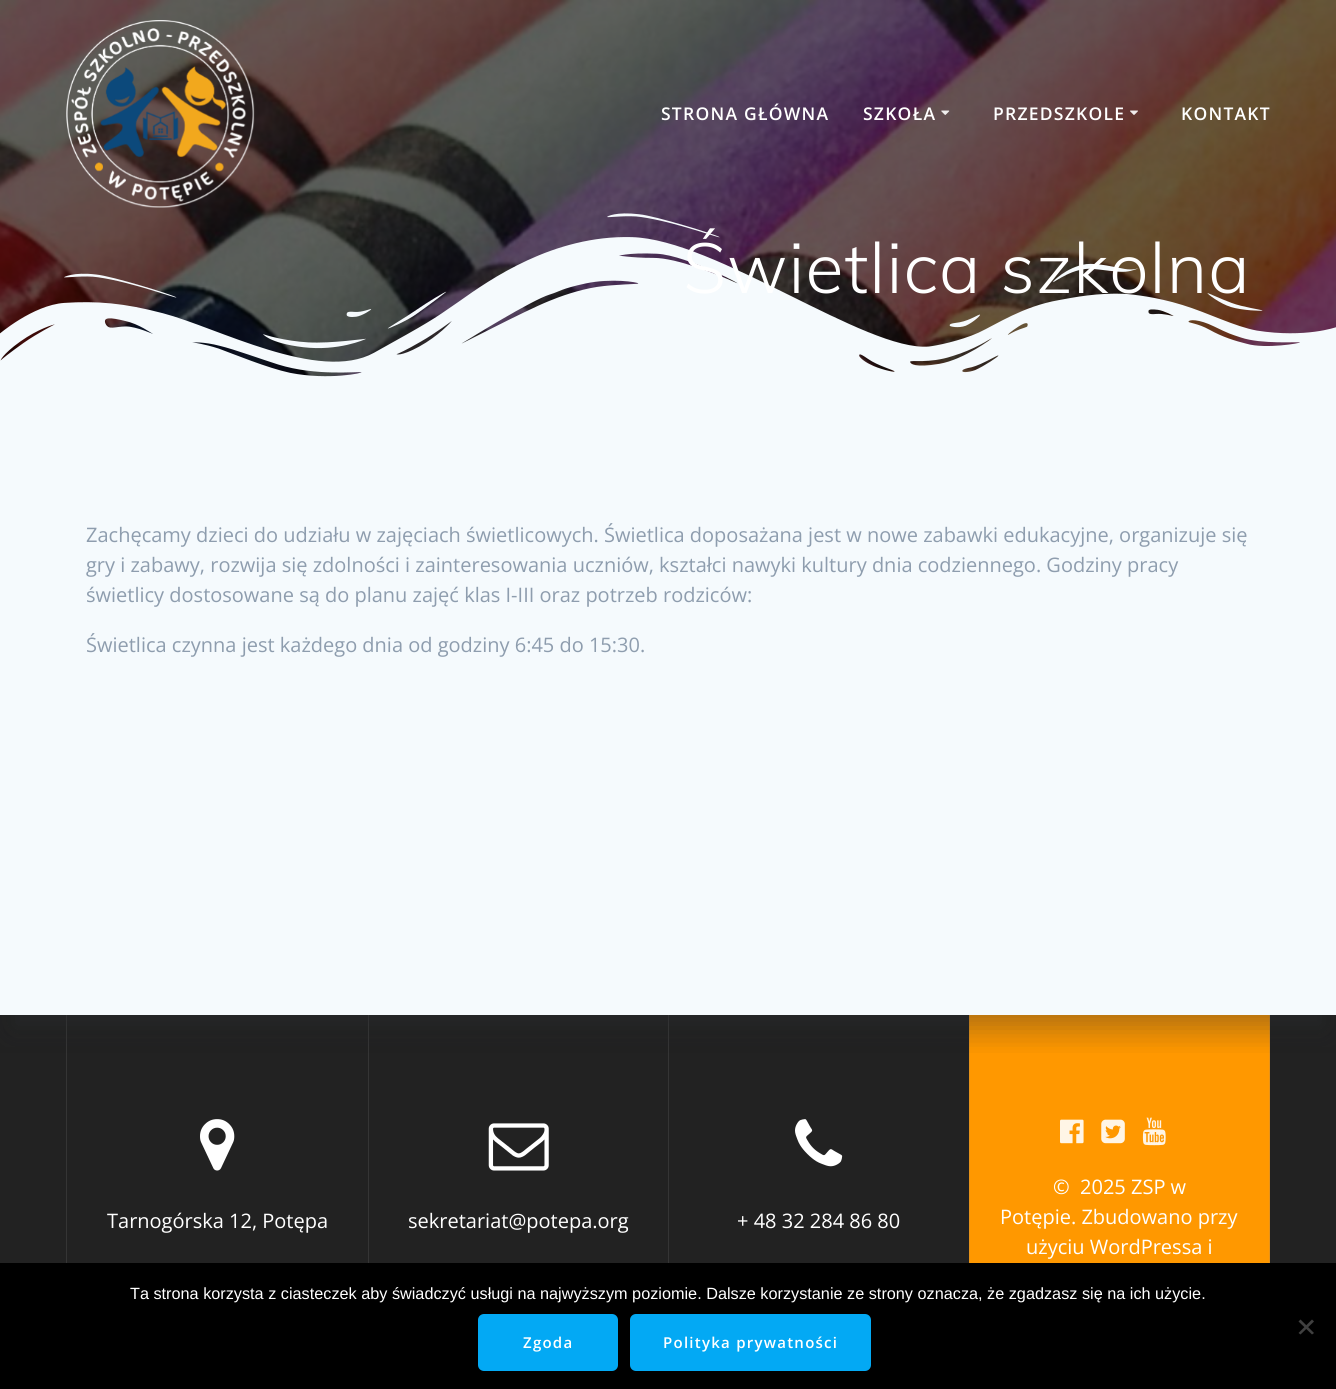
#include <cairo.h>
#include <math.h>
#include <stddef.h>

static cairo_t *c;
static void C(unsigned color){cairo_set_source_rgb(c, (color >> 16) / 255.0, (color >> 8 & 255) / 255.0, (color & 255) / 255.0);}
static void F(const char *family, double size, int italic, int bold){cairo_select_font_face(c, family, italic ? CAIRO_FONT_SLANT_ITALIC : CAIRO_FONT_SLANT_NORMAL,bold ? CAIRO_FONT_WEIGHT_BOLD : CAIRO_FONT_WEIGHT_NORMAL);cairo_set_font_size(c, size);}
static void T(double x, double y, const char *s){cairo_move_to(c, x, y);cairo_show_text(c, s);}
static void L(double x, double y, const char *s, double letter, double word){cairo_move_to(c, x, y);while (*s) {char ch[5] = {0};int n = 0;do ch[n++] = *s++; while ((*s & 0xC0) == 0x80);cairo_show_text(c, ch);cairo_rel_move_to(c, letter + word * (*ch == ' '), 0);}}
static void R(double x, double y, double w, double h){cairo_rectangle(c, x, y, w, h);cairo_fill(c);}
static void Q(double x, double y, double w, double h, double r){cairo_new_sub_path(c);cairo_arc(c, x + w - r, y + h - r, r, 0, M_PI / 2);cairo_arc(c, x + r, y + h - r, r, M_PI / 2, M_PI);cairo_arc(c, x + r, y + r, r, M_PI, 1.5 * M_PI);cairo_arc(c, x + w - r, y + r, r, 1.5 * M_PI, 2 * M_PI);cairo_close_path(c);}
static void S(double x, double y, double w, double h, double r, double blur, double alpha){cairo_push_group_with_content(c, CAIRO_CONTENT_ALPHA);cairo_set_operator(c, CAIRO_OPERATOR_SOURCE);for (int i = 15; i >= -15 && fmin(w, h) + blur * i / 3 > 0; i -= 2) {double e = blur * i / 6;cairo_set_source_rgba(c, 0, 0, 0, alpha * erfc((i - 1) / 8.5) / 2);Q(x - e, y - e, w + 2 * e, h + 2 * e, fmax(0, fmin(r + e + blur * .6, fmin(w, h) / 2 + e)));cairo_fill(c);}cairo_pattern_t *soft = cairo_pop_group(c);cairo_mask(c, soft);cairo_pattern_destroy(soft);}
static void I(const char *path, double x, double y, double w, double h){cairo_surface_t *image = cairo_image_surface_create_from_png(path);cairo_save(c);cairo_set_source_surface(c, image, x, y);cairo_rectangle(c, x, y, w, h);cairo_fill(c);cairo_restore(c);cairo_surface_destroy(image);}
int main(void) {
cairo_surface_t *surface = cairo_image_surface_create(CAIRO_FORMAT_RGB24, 1336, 1389);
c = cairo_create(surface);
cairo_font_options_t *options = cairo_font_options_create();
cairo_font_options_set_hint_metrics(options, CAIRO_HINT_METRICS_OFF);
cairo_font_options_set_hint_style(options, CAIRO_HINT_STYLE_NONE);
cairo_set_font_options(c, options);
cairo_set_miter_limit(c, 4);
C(0xf5fafd);
cairo_paint(c);
I("4.png",0,0,1336,377);
I("1.png",66,20,189,188);
F("Open Sans SemiBold",17.5,0,0);
C(0xffffff);
L(661,120,"STRONA GŁÓWNA",1.25,0);
L(863,120,"SZKOŁA",1.25,0);
I("2.png",941,110,9,5);
L(993,120,"PRZEDSZKOLE",1.25,0);
I("3.png",1130,110,8,5);
L(1181,120,"KONTAKT",1.25,0);
I("5.png",0,213,1336,186);
F("Muli Light",70,0,0);
L(683,293,"Świetlica szkolna",1.1,0);
C(0x222222);
R(0,1015,1336,248);
C(0x353535);
R(66,1015,1,248);
R(368,1015,1,248);
R(668,1015,1,248);
C(0xff9800);
R(970,1015,299,248);
C(0xe6931a);
R(1269,1015,1,248);
R(969,1015,1,248);
cairo_save(c);
cairo_rectangle(c,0,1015,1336,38);
cairo_clip(c);
C(0x000000);
S(0,424,1336,616,0,19,.08);
cairo_restore(c);
cairo_save(c);
cairo_rectangle(c,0,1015,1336,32);
cairo_clip(c);
C(0x313439);
S(13,436,1311,592,0,12.5,.3);
cairo_restore(c);
F("Open Sans",20,0,0);
C(0x8e9dae);
T(86,542,"Zachęcamy dzieci do udziału w zajęciach świetlicowych. Świetlica doposażana jest w nowe zabawki edukacyjne, organizuje się");
T(86,572,"gry i zabawy, rozwija się zdolności i zainteresowania uczniów, kształci nawyki kultury dnia codziennego. Godziny pracy");
T(86,602,"świetlicy dostosowane są do planu zajęć klas I-III oraz potrzeb rodziców:");
T(86,652,"Świetlica czynna jest każdego dnia od godziny 6:45 do 15:30.");
I("6.png",200,1119,35,52);
C(0xffffff);
T(107,1228,"Tarnogórska 12, Potępa");
I("7.png",488,1123,61,48);
T(408,1228,"sekretariat@potepa.org");
I("8.png",795,1119,48,48);
T(737,1228,"+ 48 32 284 86 80");
I("9.png",1060,1119,24,25);
I("10.png",1101,1119,24,25);
I("11.png",1142,1117,24,29);
T(1053,1194,"©  2025 ZSP w");
T(1000,1224,"Potępie. Zbudowano przy");
T(1026,1254,"użyciu WordPressa i");
C(0x000000);
R(0,1263,1336,126);
F("Liberation Sans",16.25,0,0);
C(0xffffff);
T(130,1299,"Ta strona korzysta z ciasteczek aby świadczyć usługi na najwyższym poziomie. Dalsze korzystanie ze strony oznacza, że zgadzasz się na ich użycie.");
C(0x404040);
cairo_new_path(c);
cairo_move_to(c,1312,1319.5);
cairo_line_to(c,1314,1321.5);
cairo_line_to(c,1300.5,1334.5);
cairo_line_to(c,1298.5,1333);
cairo_close_path(c);
cairo_fill(c);
cairo_new_path(c);
cairo_move_to(c,1298.5,1321.5);
cairo_line_to(c,1300.5,1319.5);
cairo_line_to(c,1314,1333);
cairo_line_to(c,1312,1334.5);
cairo_close_path(c);
cairo_fill(c);
C(0x03a9f4);
Q(479.5,1315.5,137,54,4.5);
cairo_fill_preserve(c);
cairo_set_line_width(c,3);
cairo_stroke(c);
F("Open Sans SemiBold",15,0,0);
C(0xffffff);
L(523,1348,"Zgoda",1.25,0);
C(0x03a9f4);
Q(631.5,1315.5,238,54,4.5);
cairo_fill_preserve(c);
cairo_stroke(c);
C(0xffffff);
L(663,1348,"Polityka prywatności",1.25,0);
cairo_surface_write_to_png(surface, "o.png");
cairo_font_options_destroy(options);
cairo_destroy(c);
cairo_surface_destroy(surface);
return 0;
}
